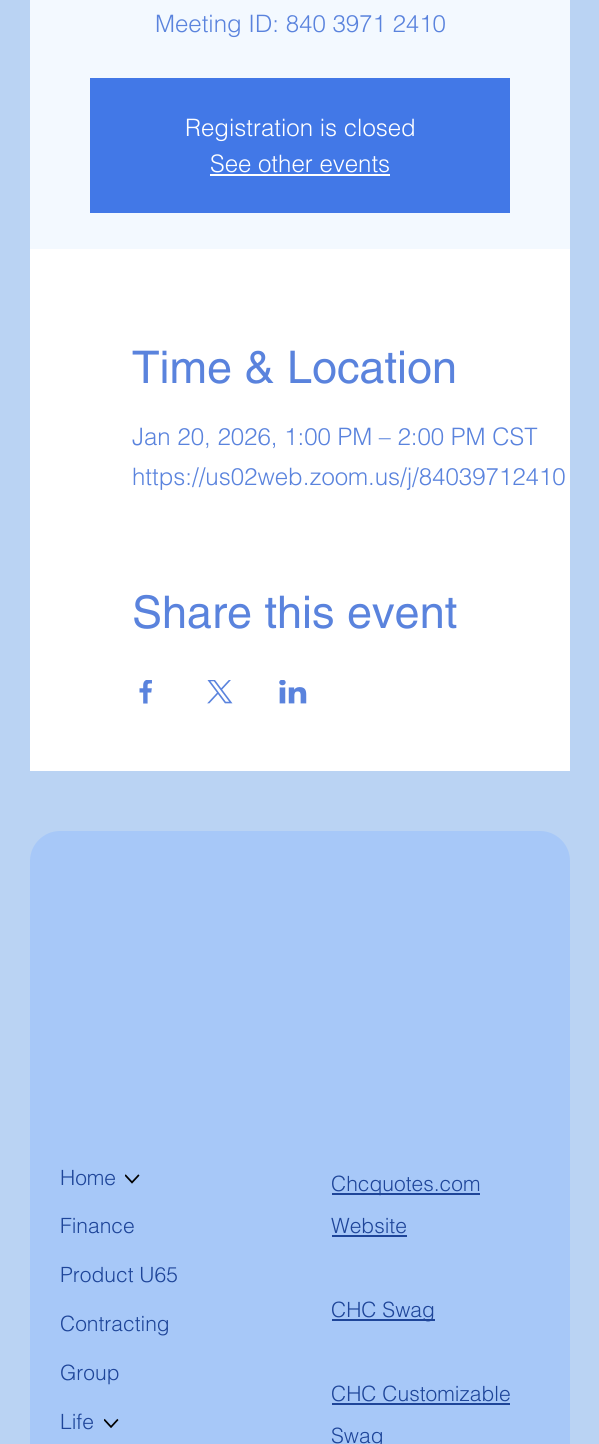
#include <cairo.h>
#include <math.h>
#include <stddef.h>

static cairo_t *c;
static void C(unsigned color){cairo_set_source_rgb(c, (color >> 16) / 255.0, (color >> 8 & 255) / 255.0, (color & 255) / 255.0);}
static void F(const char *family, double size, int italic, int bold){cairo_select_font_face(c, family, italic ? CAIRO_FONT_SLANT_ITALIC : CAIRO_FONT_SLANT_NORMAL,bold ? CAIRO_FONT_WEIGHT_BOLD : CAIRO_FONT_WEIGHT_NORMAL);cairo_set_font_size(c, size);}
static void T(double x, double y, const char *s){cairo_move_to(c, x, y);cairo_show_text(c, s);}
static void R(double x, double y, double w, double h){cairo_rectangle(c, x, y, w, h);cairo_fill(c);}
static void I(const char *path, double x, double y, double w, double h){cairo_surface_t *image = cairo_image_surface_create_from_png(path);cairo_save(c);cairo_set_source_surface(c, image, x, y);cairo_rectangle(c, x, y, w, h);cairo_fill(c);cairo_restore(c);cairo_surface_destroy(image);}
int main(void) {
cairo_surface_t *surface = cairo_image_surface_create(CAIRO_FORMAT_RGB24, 599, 1444);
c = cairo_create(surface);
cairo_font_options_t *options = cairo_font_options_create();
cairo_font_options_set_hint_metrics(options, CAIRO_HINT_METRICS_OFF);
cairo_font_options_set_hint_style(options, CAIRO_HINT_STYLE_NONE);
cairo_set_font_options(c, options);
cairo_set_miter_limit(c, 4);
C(0xbad3f3);
cairo_paint(c);
C(0xf3f9ff);
R(30,0,540,249);
F("helvetica Light",24,0,0);
C(0x5a83dd);
T(155,32,"Meeting ID: 840 3971 2410");
C(0x4278e7);
R(90,78,420,135);
C(0xffffff);
T(185,136,"Registration is closed");
T(210,172,"See other events");
R(210,174,180,2);
R(30,249,540,522);
F("helvetica",45,0,0);
C(0x5a83dd);
T(132,383,"Time & Location");
F("helvetica Light",24,0,0);
T(132,445,"Jan 20, 2026, 1:00 PM – 2:00 PM CST");
T(132,485,"https://us02web.zoom.us/j/84039712410");
F("helvetica",45,0,0);
T(132,628,"Share this event");
I("1.png",139,680,13,24);
I("2.png",207,680,26,24);
I("3.png",279,680,28,24);
C(0xa7c8f8);
cairo_new_path(c);
cairo_move_to(c,60,831);
cairo_line_to(c,540,831);
cairo_curve_to(c,556.5,831,570,844.5,570,861);
cairo_line_to(c,570,1133);
cairo_line_to(c,30,1133);
cairo_line_to(c,30,861);
cairo_curve_to(c,30,844.5,43.5,831,60,831);
cairo_close_path(c);
cairo_fill(c);
R(30,1133,540,311);
F("helvetica Light",21,0,0);
C(0x1e4599);
T(60,1185,"Home");
I("4.png",125,1174,15,10);
T(60,1233,"Finance");
T(60,1282,"Product U65");
T(60,1331,"Contracting");
T(60,1380,"Group");
T(60,1429,"Life");
I("5.png",104,1418,15,10);
R(332,1193,148,2);
T(331,1191,"Chcquotes.com");
T(331,1233,"Website");
R(332,1235,75,2);
R(332,1319,103,2);
T(331,1317,"CHC Swag");
T(331,1401,"CHC Customizable");
R(332,1403,178,2);
T(331,1443,"Swag");
cairo_surface_write_to_png(surface, "o.png");
cairo_font_options_destroy(options);
cairo_destroy(c);
cairo_surface_destroy(surface);
return 0;
}
